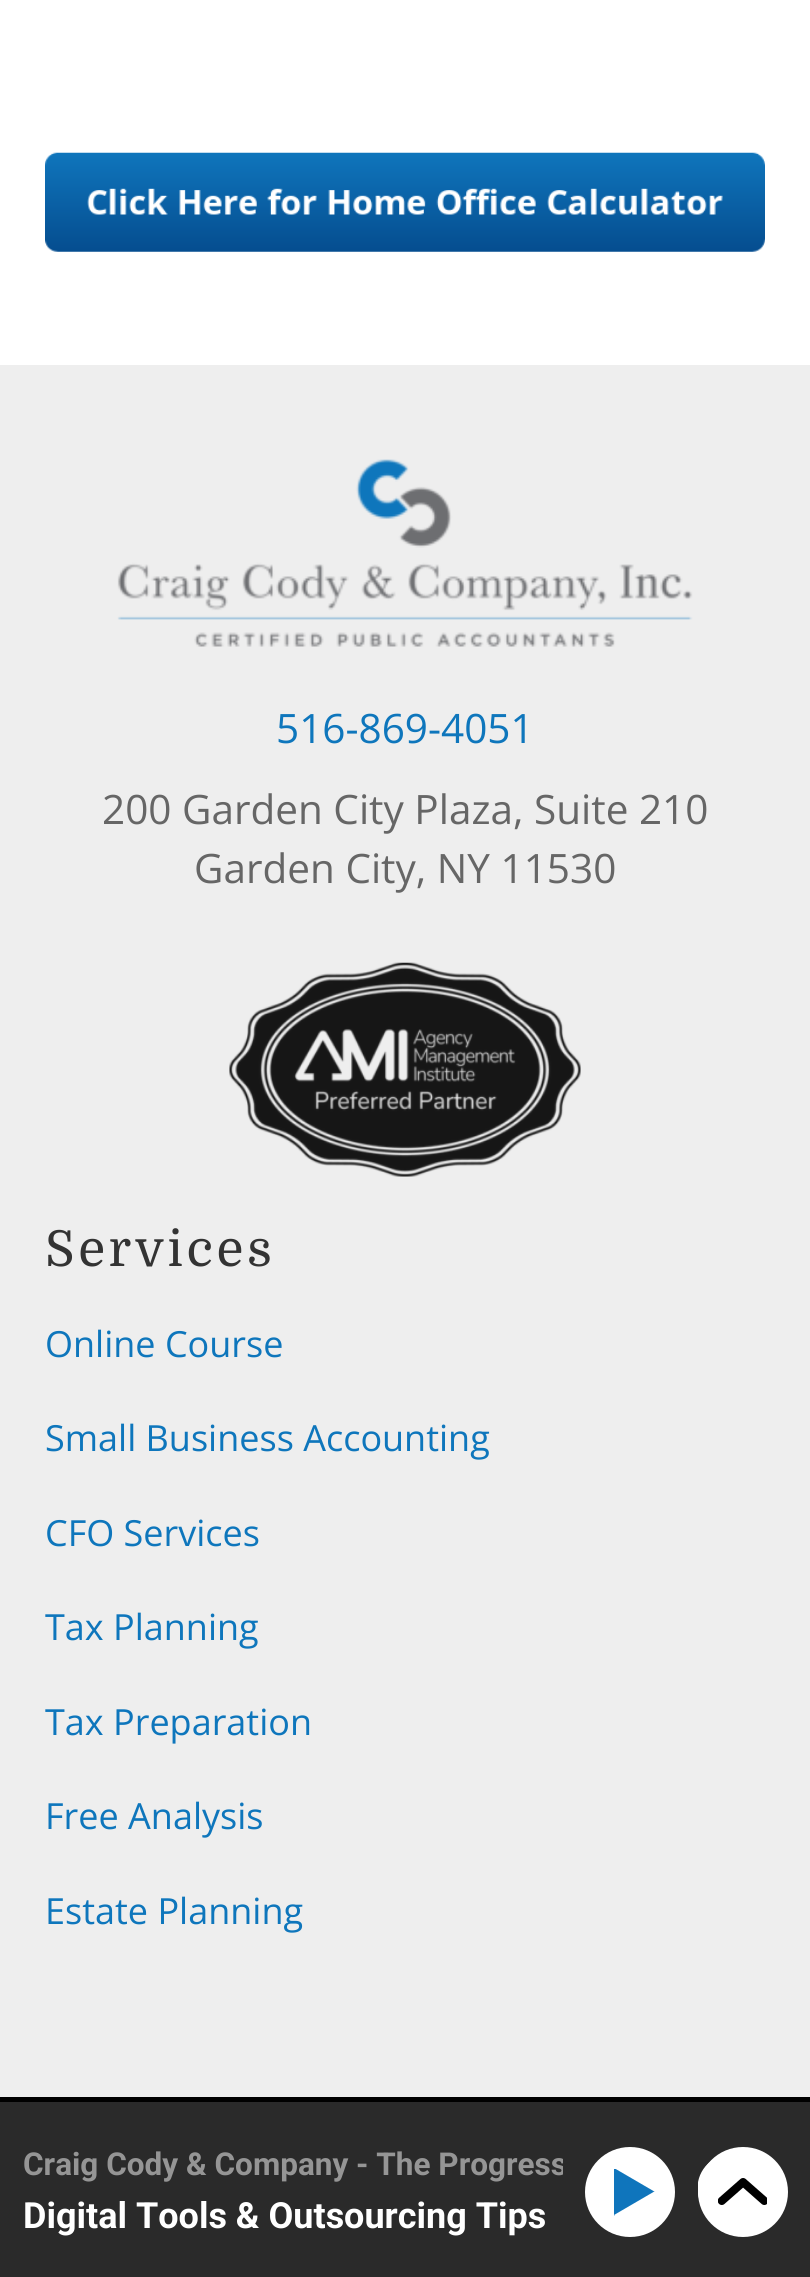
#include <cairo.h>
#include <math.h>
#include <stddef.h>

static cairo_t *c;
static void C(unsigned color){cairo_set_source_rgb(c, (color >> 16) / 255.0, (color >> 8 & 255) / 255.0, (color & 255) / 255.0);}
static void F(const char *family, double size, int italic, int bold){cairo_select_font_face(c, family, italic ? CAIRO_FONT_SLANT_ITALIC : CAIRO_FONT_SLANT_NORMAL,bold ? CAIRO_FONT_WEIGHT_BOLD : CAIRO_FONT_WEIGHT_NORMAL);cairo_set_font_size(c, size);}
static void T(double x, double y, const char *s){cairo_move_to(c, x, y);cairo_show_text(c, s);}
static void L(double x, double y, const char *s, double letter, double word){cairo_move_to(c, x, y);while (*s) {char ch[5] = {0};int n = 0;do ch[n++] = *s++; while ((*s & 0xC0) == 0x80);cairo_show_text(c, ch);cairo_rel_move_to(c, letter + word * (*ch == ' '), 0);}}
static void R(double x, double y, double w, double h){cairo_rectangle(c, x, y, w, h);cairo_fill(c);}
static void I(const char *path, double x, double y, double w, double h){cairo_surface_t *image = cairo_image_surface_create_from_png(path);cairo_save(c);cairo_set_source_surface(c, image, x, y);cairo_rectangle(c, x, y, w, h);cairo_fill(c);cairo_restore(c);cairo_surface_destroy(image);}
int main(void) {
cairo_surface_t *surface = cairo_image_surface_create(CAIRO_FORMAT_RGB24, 810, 2277);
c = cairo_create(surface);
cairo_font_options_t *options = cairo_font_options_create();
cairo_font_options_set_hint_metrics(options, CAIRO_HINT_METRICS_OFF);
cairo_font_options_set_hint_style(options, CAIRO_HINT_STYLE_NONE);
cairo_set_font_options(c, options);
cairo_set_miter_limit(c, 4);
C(0xffffff);
cairo_paint(c);
I("1.png",45,152,720,100);
C(0xeeeeee);
R(0,365,810,1732);
I("2.png",117,459,576,188);
F("Open Sans",40.5,0,0);
C(0x0e76bc);
T(276,743,"516-869-4051");
C(0x666666);
T(102,824,"200 Garden City Plaza, Suite 210");
T(194,883,"Garden City, NY 11530");
I("3.png",229,962,352,215);
F("Domine",49.5,0,0);
C(0x333333);
L(45,1266,"Services",3.5,0);
F("Open Sans",36,0,0);
C(0x0e76bc);
T(45,1357,"Online Course");
T(45,1451,"Small Business Accounting");
T(45,1546,"CFO Services");
T(45,1640,"Tax Planning");
T(45,1735,"Tax Preparation");
T(45,1829,"Free Analysis");
T(45,1924,"Estate Planning");
C(0x2a2a2a);
R(0,2102,810,175);
C(0x000000);
R(0,2097,810,5);
cairo_save(c);
cairo_rectangle(c,23,2147,540,38);
cairo_clip(c);
F("Roboto",31.5,0,1);
C(0x959595);
T(23,2175,"Craig Cody & Company - The Progress");
cairo_restore(c);
F("Roboto",36,0,1);
C(0xffffff);
T(23,2228,"Digital Tools & Outsourcing Tips");
I("4.png",698,2159,15,39);
cairo_arc(c,630,2192,45,0,2 * M_PI);
cairo_fill(c);
C(0x0f75bc);
R(614,2169,16,47);
R(630,2177,26,29);
cairo_save(c);
cairo_rectangle(c,601,2162,58,59);
cairo_clip(c);
C(0xffffff);
cairo_new_path(c);
cairo_move_to(c,637,2128);
cairo_line_to(c,698,2163);
cairo_line_to(c,674,2203);
cairo_line_to(c,614,2168);
cairo_close_path(c);
cairo_fill(c);
cairo_new_path(c);
cairo_move_to(c,614,2215);
cairo_line_to(c,674,2180);
cairo_line_to(c,698,2220);
cairo_line_to(c,637,2255);
cairo_close_path(c);
cairo_fill(c);
cairo_restore(c);
C(0xffffff);
cairo_arc(c,743,2192,45,0,2 * M_PI);
cairo_fill(c);
I("5.png",718,2178,49,27);
cairo_surface_write_to_png(surface, "o.png");
cairo_font_options_destroy(options);
cairo_destroy(c);
cairo_surface_destroy(surface);
return 0;
}
